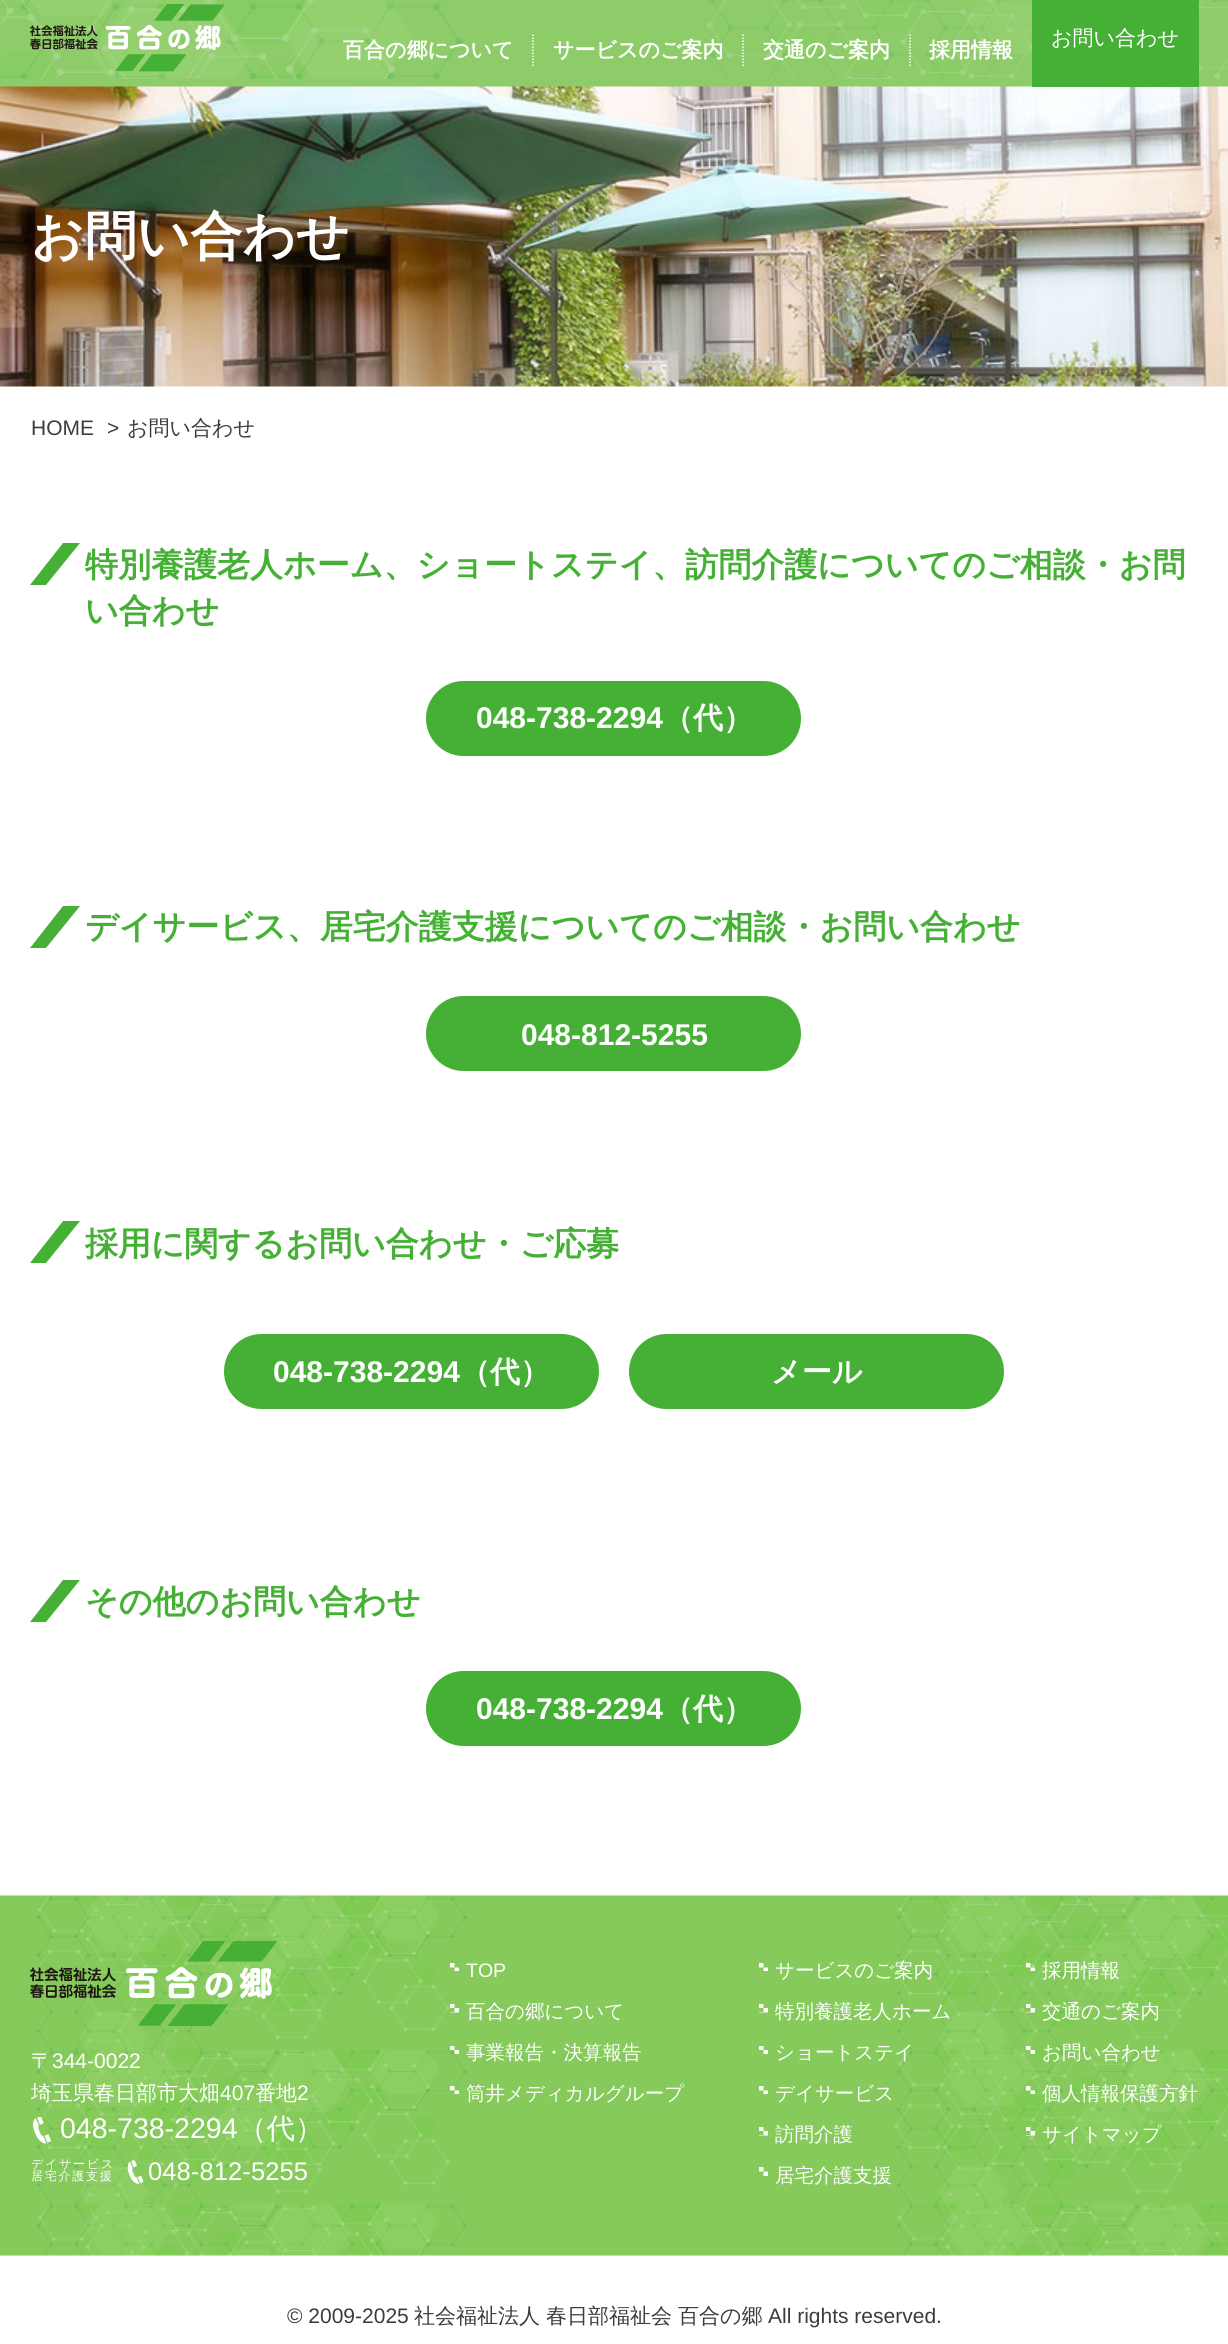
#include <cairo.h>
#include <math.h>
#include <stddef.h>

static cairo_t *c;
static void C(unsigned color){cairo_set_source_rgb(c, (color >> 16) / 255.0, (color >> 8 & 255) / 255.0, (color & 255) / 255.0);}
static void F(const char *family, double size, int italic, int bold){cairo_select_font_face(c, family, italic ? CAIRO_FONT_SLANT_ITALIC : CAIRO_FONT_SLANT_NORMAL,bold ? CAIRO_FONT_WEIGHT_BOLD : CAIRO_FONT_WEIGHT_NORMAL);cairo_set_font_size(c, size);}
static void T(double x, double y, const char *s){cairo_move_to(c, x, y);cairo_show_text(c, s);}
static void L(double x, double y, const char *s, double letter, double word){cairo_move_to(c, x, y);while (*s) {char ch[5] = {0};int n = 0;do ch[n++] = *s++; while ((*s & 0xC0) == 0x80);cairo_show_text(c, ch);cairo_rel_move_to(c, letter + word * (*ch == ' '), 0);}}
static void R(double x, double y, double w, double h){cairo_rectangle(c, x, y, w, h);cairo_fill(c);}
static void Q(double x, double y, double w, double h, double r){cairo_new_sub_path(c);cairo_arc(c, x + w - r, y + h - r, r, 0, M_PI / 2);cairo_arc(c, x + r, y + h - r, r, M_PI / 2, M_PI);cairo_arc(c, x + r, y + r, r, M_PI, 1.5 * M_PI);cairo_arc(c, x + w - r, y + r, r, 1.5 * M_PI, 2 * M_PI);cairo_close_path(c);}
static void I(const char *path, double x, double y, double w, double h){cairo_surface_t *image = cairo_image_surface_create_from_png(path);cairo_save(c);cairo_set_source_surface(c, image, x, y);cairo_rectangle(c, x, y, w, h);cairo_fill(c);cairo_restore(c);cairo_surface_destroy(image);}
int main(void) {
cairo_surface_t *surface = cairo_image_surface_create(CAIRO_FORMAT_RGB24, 1228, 2344);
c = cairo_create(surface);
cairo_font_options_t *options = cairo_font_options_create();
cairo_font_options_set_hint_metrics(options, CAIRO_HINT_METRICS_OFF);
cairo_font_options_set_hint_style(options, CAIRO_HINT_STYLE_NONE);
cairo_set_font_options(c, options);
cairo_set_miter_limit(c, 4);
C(0xffffff);
cairo_paint(c);
C(0x8ecc6a);
R(0,0,1228,87);
I("1.png",1,0,1227,79);
I("2.png",30,4,195,68);
cairo_new_path(c);
cairo_move_to(c,533,34.5);
cairo_line_to(c,533,66);
C(0xffffff);
cairo_set_line_width(c,1.5);
cairo_set_dash(c,(double[]){1.5,1.5},2,0);
cairo_stroke(c);
F("WenQuanYi Zen Hei",21,0,1);
T(343,57,"百合の郷について");
cairo_new_path(c);
cairo_move_to(c,743,34.5);
cairo_line_to(c,743,66);
cairo_stroke(c);
T(553,57,"サービスのご案内");
cairo_new_path(c);
cairo_move_to(c,910,34.5);
cairo_line_to(c,910,66);
cairo_stroke(c);
T(763,57,"交通のご案内");
T(929,57,"採用情報");
I("3.png",0,86,1228,301);
C(0x45b035);
R(1032,0,167,87);
F("WenQuanYi Zen Hei Medium",21,0,0);
C(0xffffff);
T(1051,45,"お問い合わせ");
F("WenQuanYi Zen Hei",52.25,0,1);
T(31,254,"お問い合わせ");
F("Liberation Sans",21,0,0);
C(0x3c3c3c);
T(31,435,"HOME");
T(107,435,">");
F("WenQuanYi Zen Hei Medium",21,0,0);
T(127,435,"お問い合わせ");
C(0x45b035);
cairo_new_path(c);
cairo_move_to(c,80,543);
cairo_line_to(c,63,543);
cairo_line_to(c,30,585);
cairo_line_to(c,46,585);
cairo_close_path(c);
cairo_fill(c);
F("WenQuanYi Zen Hei",33,0,1);
T(85,576,"特別養護老人ホーム、ショートステイ、訪問介護についてのご相談・お問");
T(85,622,"い合わせ");
Q(426,681,375,75,37.5);
cairo_fill(c);
F("Liberation Sans",30,0,1);
C(0xffffff);
T(476,728,"048-738-2294");
F("WenQuanYi Zen Hei",30,0,1);
T(663,728,"（代）");
C(0x45b035);
cairo_new_path(c);
cairo_move_to(c,80,906);
cairo_line_to(c,63,906);
cairo_line_to(c,30,948);
cairo_line_to(c,46,948);
cairo_close_path(c);
cairo_fill(c);
F("WenQuanYi Zen Hei",33,0,1);
T(85,938,"デイサービス、居宅介護支援についてのご相談・お問い合わせ");
Q(426,996,375,75,37.5);
cairo_fill(c);
F("Liberation Sans",30,0,1);
C(0xffffff);
T(521,1045,"048-812-5255");
C(0x45b035);
cairo_new_path(c);
cairo_move_to(c,80,1221);
cairo_line_to(c,63,1221);
cairo_line_to(c,30,1263);
cairo_line_to(c,46,1263);
cairo_close_path(c);
cairo_fill(c);
F("WenQuanYi Zen Hei",33,0,1);
T(85,1255,"採用に関するお問い合わせ・ご応募");
Q(224,1334,375,75,37.5);
cairo_fill(c);
F("Liberation Sans",30,0,1);
C(0xffffff);
T(273,1382,"048-738-2294");
F("WenQuanYi Zen Hei",30,0,1);
T(460,1382,"（代）");
C(0x45b035);
Q(629,1334,375,75,37.5);
cairo_fill(c);
C(0xffffff);
T(771,1382,"メール");
C(0x45b035);
cairo_new_path(c);
cairo_move_to(c,80,1580);
cairo_line_to(c,63,1580);
cairo_line_to(c,30,1622);
cairo_line_to(c,46,1622);
cairo_close_path(c);
cairo_fill(c);
F("WenQuanYi Zen Hei",33,0,1);
T(85,1613,"その他のお問い合わせ");
Q(426,1671,375,75,37.5);
cairo_fill(c);
F("Liberation Sans",30,0,1);
C(0xffffff);
T(476,1719,"048-738-2294");
F("WenQuanYi Zen Hei",30,0,1);
T(663,1719,"（代）");
I("4.png",0,1895,1228,361);
I("5.png",30,1941,248,85);
F("WenQuanYi Zen Hei Medium",21,0,0);
T(31,2068,"〒");
F("Liberation Sans",21,0,0);
T(52,2068,"344-0022");
F("WenQuanYi Zen Hei Medium",21,0,0);
T(31,2100,"埼玉県春日部市大畑");
F("Liberation Sans",21,0,0);
T(220,2100,"407");
F("WenQuanYi Zen Hei Medium",21,0,0);
T(255,2100,"番地");
F("Liberation Sans",21,0,0);
T(297,2100,"2");
I("6.png",33,2117,18,27);
F("Liberation Sans",28.5,0,0);
T(60,2138,"048-738-2294");
F("WenQuanYi Zen Hei Medium",28.5,0,0);
T(238,2138,"（代）");
F("WenQuanYi Zen Hei Medium",12,0,0);
L(31,2168,"デイサービス",1.75,0);
L(31,2180,"居宅介護支援",1.75,0);
I("7.png",128,2160,16,24);
F("Liberation Sans",25.5,0,0);
L(148,2180,"048-812-5255",.1,0);
I("8.png",450,1963,9,8);
F("Liberation Sans",19.5,0,0);
T(466,1977,"TOP");
I("9.png",450,2004,9,9);
F("WenQuanYi Zen Hei Medium",19.5,0,0);
T(466,2018,"百合の郷について");
I("10.png",450,2046,9,8);
T(466,2059,"事業報告・決算報告");
I("11.png",450,2086,9,8);
T(466,2100,"筒井メディカルグループ");
I("8.png",759,1963,9,8);
T(775,1977,"サービスのご案内");
I("9.png",759,2004,9,9);
T(775,2018,"特別養護老人ホーム");
I("12.png",759,2046,9,8);
T(775,2059,"ショートステイ");
I("8.png",759,2086,9,8);
T(775,2100,"デイサービス");
I("9.png",759,2127,9,9);
T(775,2141,"訪問介護");
I("13.png",759,2167,9,9);
T(775,2182,"居宅介護支援");
I("14.png",1026,1963,9,8);
T(1042,1977,"採用情報");
I("9.png",1026,2004,9,9);
T(1042,2018,"交通のご案内");
I("15.png",1026,2046,9,8);
T(1042,2059,"お問い合わせ");
I("16.png",1026,2086,9,8);
T(1042,2100,"個人情報保護方針");
I("17.png",1026,2127,9,9);
T(1042,2141,"サイトマップ");
F("Liberation Sans",21,0,0);
C(0x3c3c3c);
T(287,2323,"© 2009-2025");
F("WenQuanYi Zen Hei Medium",21,0,0);
T(414,2323,"社会福祉法人");
T(546,2323,"春日部福祉会");
T(678,2323,"百合の郷");
F("Liberation Sans",21,0,0);
T(768,2323,"All rights reserved.");
cairo_surface_write_to_png(surface, "o.png");
cairo_font_options_destroy(options);
cairo_destroy(c);
cairo_surface_destroy(surface);
return 0;
}
